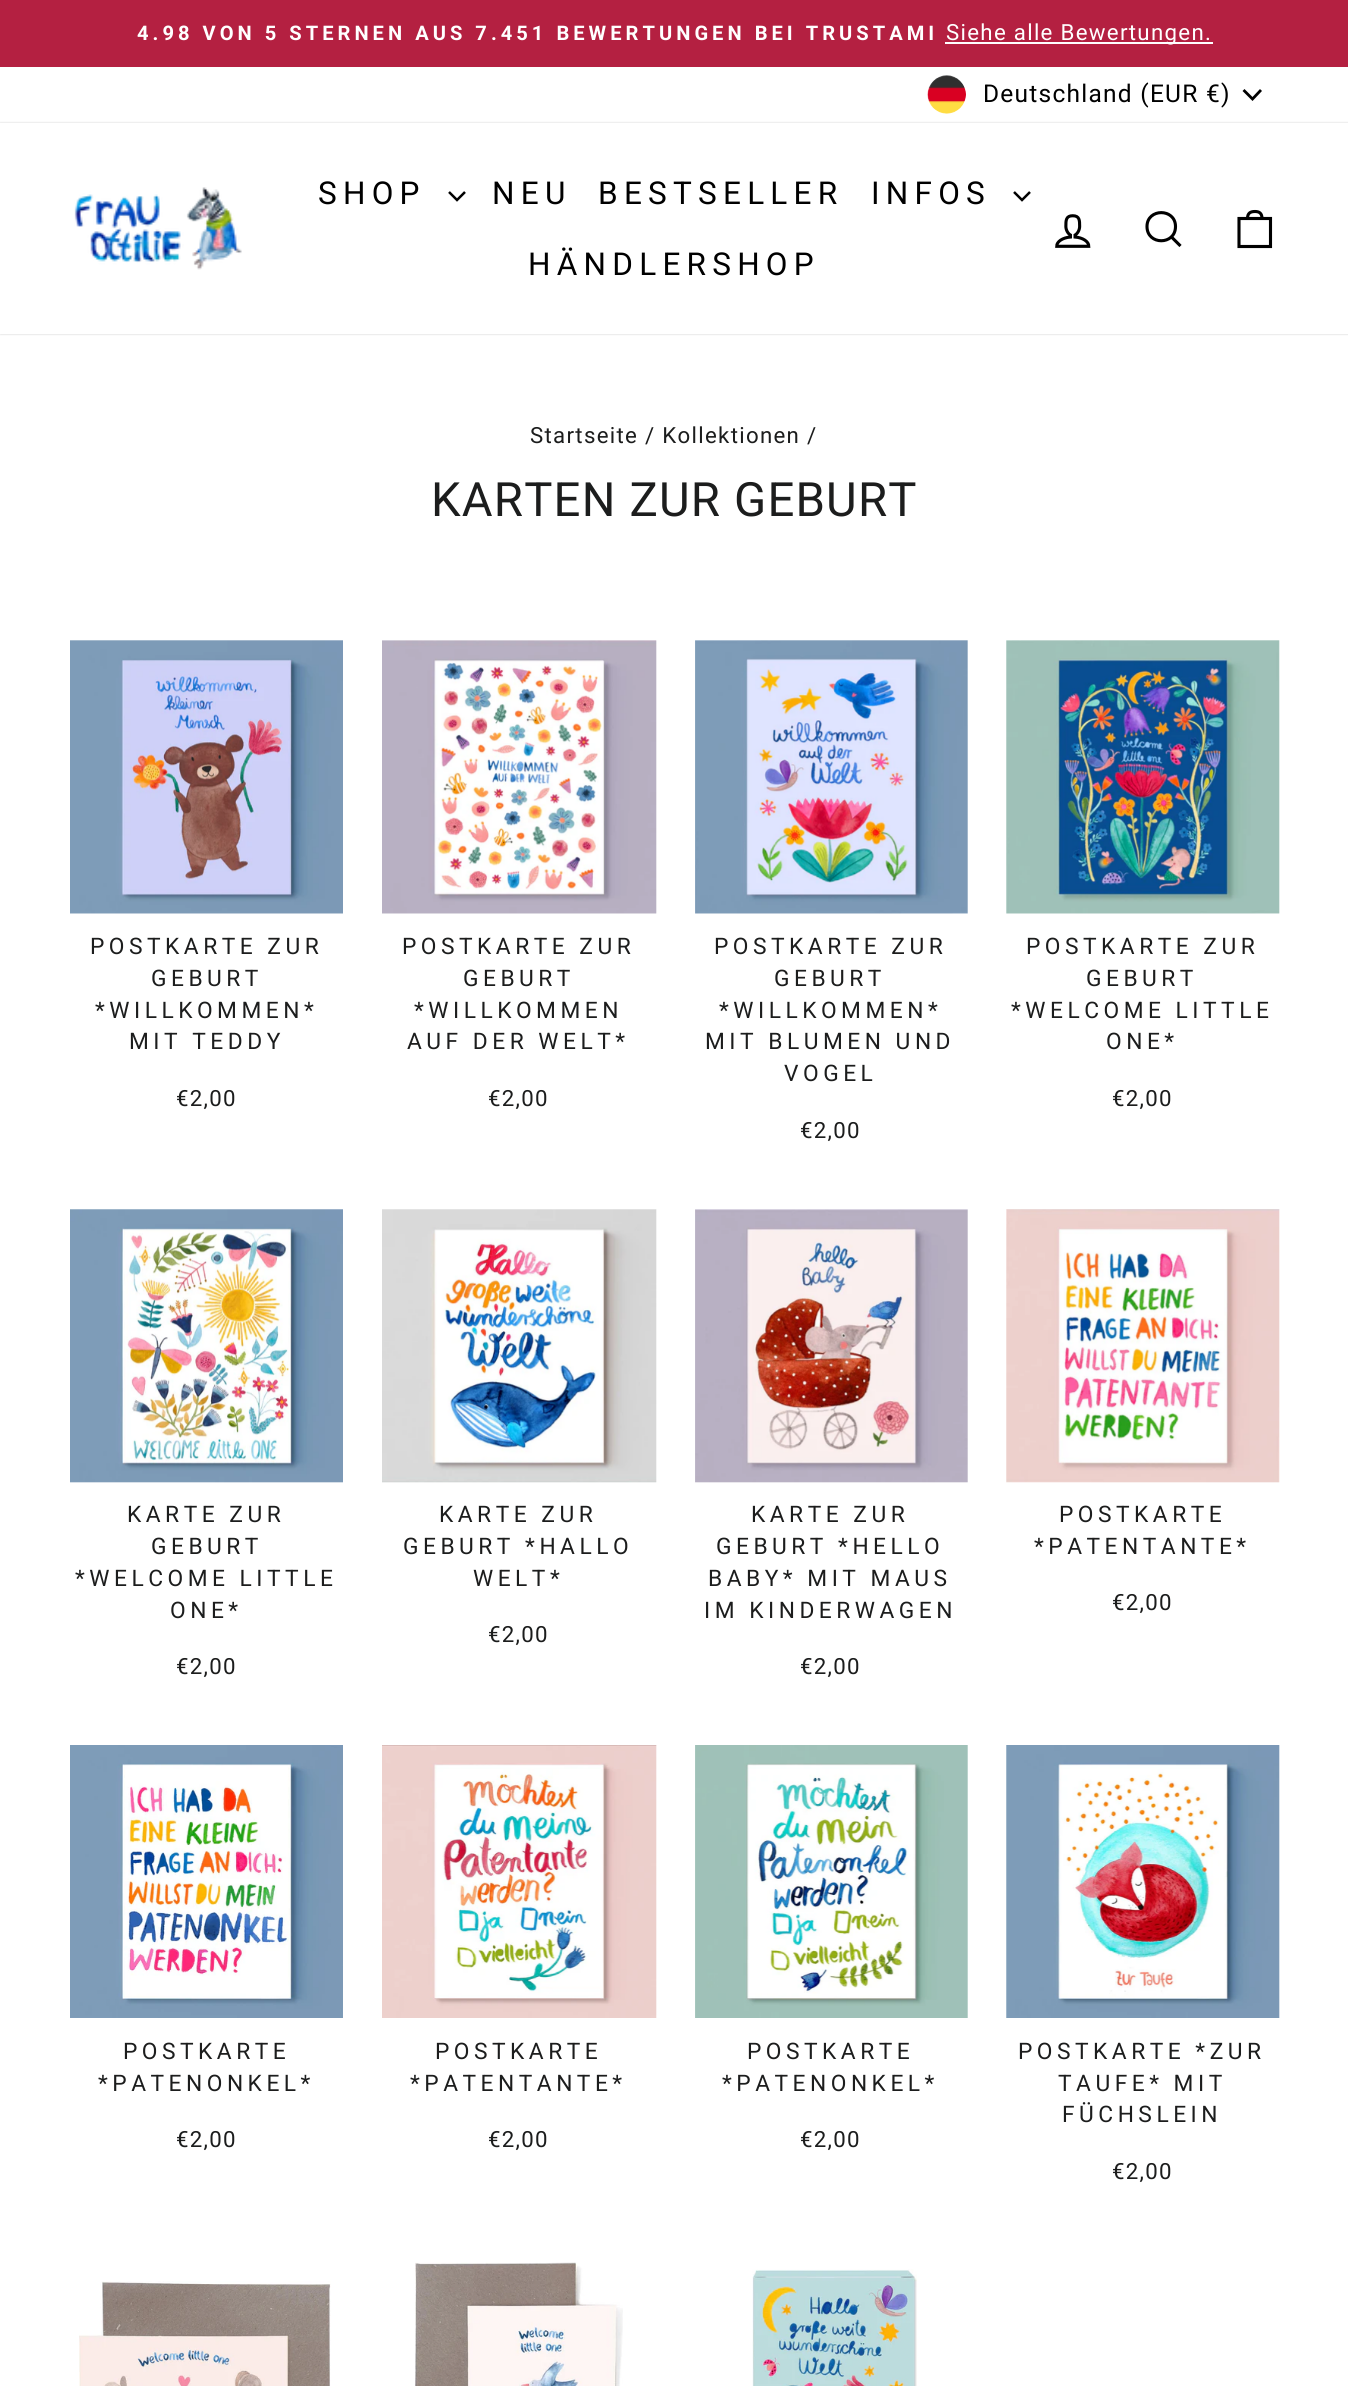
#include <cairo.h>
#include <math.h>
#include <stddef.h>

static cairo_t *c;
static void C(unsigned color){cairo_set_source_rgb(c, (color >> 16) / 255.0, (color >> 8 & 255) / 255.0, (color & 255) / 255.0);}
static void F(const char *family, double size, int italic, int bold){cairo_select_font_face(c, family, italic ? CAIRO_FONT_SLANT_ITALIC : CAIRO_FONT_SLANT_NORMAL,bold ? CAIRO_FONT_WEIGHT_BOLD : CAIRO_FONT_WEIGHT_NORMAL);cairo_set_font_size(c, size);}
static void L(double x, double y, const char *s, double letter, double word){cairo_move_to(c, x, y);while (*s) {char ch[5] = {0};int n = 0;do ch[n++] = *s++; while ((*s & 0xC0) == 0x80);cairo_show_text(c, ch);cairo_rel_move_to(c, letter + word * (*ch == ' '), 0);}}
static void R(double x, double y, double w, double h){cairo_rectangle(c, x, y, w, h);cairo_fill(c);}
static void Q(double x, double y, double w, double h, double r){cairo_new_sub_path(c);cairo_arc(c, x + w - r, y + h - r, r, 0, M_PI / 2);cairo_arc(c, x + r, y + h - r, r, M_PI / 2, M_PI);cairo_arc(c, x + r, y + r, r, M_PI, 1.5 * M_PI);cairo_arc(c, x + w - r, y + r, r, 1.5 * M_PI, 2 * M_PI);cairo_close_path(c);}
static void S(double x, double y, double w, double h, double r, double blur, double alpha){cairo_push_group_with_content(c, CAIRO_CONTENT_ALPHA);cairo_set_operator(c, CAIRO_OPERATOR_SOURCE);for (int i = 15; i >= -15 && fmin(w, h) + blur * i / 3 > 0; i -= 2) {double e = blur * i / 6;cairo_set_source_rgba(c, 0, 0, 0, alpha * erfc((i - 1) / 8.5) / 2);Q(x - e, y - e, w + 2 * e, h + 2 * e, fmax(0, fmin(r + e + blur * .6, fmin(w, h) / 2 + e)));cairo_fill(c);}cairo_pattern_t *soft = cairo_pop_group(c);cairo_mask(c, soft);cairo_pattern_destroy(soft);}
static void I(const char *path, double x, double y, double w, double h){cairo_surface_t *image = cairo_image_surface_create_from_png(path);cairo_save(c);cairo_set_source_surface(c, image, x, y);cairo_rectangle(c, x, y, w, h);cairo_fill(c);cairo_restore(c);cairo_surface_destroy(image);}
int main(void) {
cairo_surface_t *surface = cairo_image_surface_create(CAIRO_FORMAT_RGB24, 1348, 2386);
c = cairo_create(surface);
cairo_font_options_t *options = cairo_font_options_create();
cairo_font_options_set_hint_metrics(options, CAIRO_HINT_METRICS_OFF);
cairo_font_options_set_hint_style(options, CAIRO_HINT_STYLE_NONE);
cairo_set_font_options(c, options);
cairo_set_miter_limit(c, 4);
C(0xffffff);
cairo_paint(c);
C(0xb42041);
R(0,0,1348,67);
F("Roboto",20.1,0,1);
C(0xffffff);
L(137,40,"4.98 VON 5 STERNEN AUS 7.451 BEWERTUNGEN BEI TRUSTAMI",4.02,0);
R(945,42,268,2);
F("Roboto",22.25,0,0);
L(946,40,"Siehe alle Bewertungen.",1.3,0);
I("1.png",927,75,39,39);
F("Roboto",24.5,0,0);
C(0x000000);
L(983,102,"Deutschland (EUR €)",1.25,0);
cairo_new_path(c);
cairo_move_to(c,1243.5,90);
cairo_line_to(c,1252.5,99);
cairo_line_to(c,1261,90);
cairo_set_line_width(c,2.8);
cairo_stroke(c);
cairo_save(c);
cairo_set_fill_rule(c,CAIRO_FILL_RULE_EVEN_ODD);
cairo_new_path(c);
cairo_move_to(c,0,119);
cairo_line_to(c,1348,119);
cairo_line_to(c,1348,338);
cairo_line_to(c,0,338);
cairo_close_path(c);
cairo_move_to(c,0,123);
cairo_line_to(c,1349,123);
cairo_line_to(c,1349,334);
cairo_line_to(c,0,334);
cairo_close_path(c);
cairo_clip(c);
C(0x000000);
S(0,123,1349,211,0,1,.2);
cairo_restore(c);
I("2.png",74,187,168,83);
F("Roboto",31.5,0,0);
L(318,204,"SHOP",6.25,0);
cairo_new_path(c);
cairo_move_to(c,449,192);
cairo_line_to(c,457,200);
cairo_line_to(c,465,192);
cairo_set_line_width(c,2.5);
cairo_stroke(c);
L(492,204,"NEU",6.25,0);
L(598,204,"BESTSELLER",6.25,0);
L(871,204,"INFOS",6.25,0);
cairo_new_path(c);
cairo_move_to(c,1014,192);
cairo_line_to(c,1022,200);
cairo_line_to(c,1030,192);
cairo_stroke(c);
L(528,275,"HÄNDLERSHOP",6.25,0);
I("3.png",1055,214,36,34);
cairo_new_path(c);
cairo_move_to(c,1175.5,226.5);
cairo_curve_to(c,1175.5,245.5,1147,245.5,1147,226.5);
cairo_curve_to(c,1147,208,1175.5,208,1175.5,226.5);
cairo_close_path(c);
cairo_move_to(c,1180.5,246);
cairo_line_to(c,1171.5,237);
cairo_set_line_width(c,3.1);
cairo_stroke(c);
cairo_new_path(c);
cairo_move_to(c,1239,218.5);
cairo_line_to(c,1270.5,218.5);
cairo_line_to(c,1270.5,246.5);
cairo_line_to(c,1239,246.5);
cairo_close_path(c);
cairo_move_to(c,1247.5,218.5);
cairo_curve_to(c,1247.5,213,1250.5,211.5,1255,211.5);
cairo_curve_to(c,1259,211.5,1262,213,1262,218.5);
cairo_stroke(c);
F("Roboto",22.25,0,0);
C(0x1c1d1d);
L(530,443,"Startseite / Kollektionen /",1.3,0);
F("Roboto",47.25,0,0);
L(431,516,"KARTEN ZUR GEBURT",1.2,0);
I("4.png",70,640,273,274);
F("Roboto",22.75,0,0);
L(90,954,"POSTKARTE ZUR",4.5,0);
L(151,986,"GEBURT",4.5,0);
L(95,1018,"*WILLKOMMEN*",4.5,0);
L(129,1049,"MIT TEDDY",4.5,0);
F("Roboto",22.25,0,0);
L(176,1106,"€2,00",1.3,0);
I("5.png",382,640,275,274);
F("Roboto",22.75,0,0);
L(402,954,"POSTKARTE ZUR",4.5,0);
L(463,986,"GEBURT",4.5,0);
L(414,1018,"*WILLKOMMEN",4.5,0);
L(407,1049,"AUF DER WELT*",4.5,0);
F("Roboto",22.25,0,0);
L(488,1106,"€2,00",1.3,0);
I("6.png",695,640,273,274);
F("Roboto",22.75,0,0);
L(714,954,"POSTKARTE ZUR",4.5,0);
L(774,986,"GEBURT",4.5,0);
L(719,1018,"*WILLKOMMEN*",4.5,0);
L(705,1049,"MIT BLUMEN UND",4.5,0);
L(784,1081,"VOGEL",4.5,0);
F("Roboto",22.25,0,0);
L(800,1138,"€2,00",1.3,0);
I("7.png",1006,640,274,274);
F("Roboto",22.75,0,0);
L(1026,954,"POSTKARTE ZUR",4.5,0);
L(1086,986,"GEBURT",4.5,0);
L(1011,1018,"*WELCOME LITTLE",4.5,0);
L(1106,1049,"ONE*",4.5,0);
F("Roboto",22.25,0,0);
L(1112,1106,"€2,00",1.3,0);
I("8.png",70,1209,273,274);
F("Roboto",22.75,0,0);
L(127,1522,"KARTE ZUR",4.5,0);
L(151,1554,"GEBURT",4.5,0);
L(75,1586,"*WELCOME LITTLE",4.5,0);
L(170,1618,"ONE*",4.5,0);
F("Roboto",22.25,0,0);
L(176,1674,"€2,00",1.3,0);
I("9.png",382,1209,275,274);
F("Roboto",22.75,0,0);
L(439,1522,"KARTE ZUR",4.5,0);
L(403,1554,"GEBURT *HALLO",4.5,0);
L(473,1586,"WELT*",4.5,0);
F("Roboto",22.25,0,0);
L(488,1642,"€2,00",1.3,0);
I("10.png",695,1209,273,274);
F("Roboto",22.75,0,0);
L(751,1522,"KARTE ZUR",4.5,0);
L(716,1554,"GEBURT *HELLO",4.5,0);
L(708,1586,"BABY* MIT MAUS",4.5,0);
L(704,1618,"IM KINDERWAGEN",4.5,0);
F("Roboto",22.25,0,0);
L(800,1674,"€2,00",1.3,0);
I("11.png",1006,1209,274,274);
F("Roboto",22.75,0,0);
L(1059,1522,"POSTKARTE",4.5,0);
L(1034,1554,"*PATENTANTE*",4.5,0);
F("Roboto",22.25,0,0);
L(1112,1610,"€2,00",1.3,0);
I("12.png",70,1745,273,273);
F("Roboto",22.75,0,0);
L(123,2059,"POSTKARTE",4.5,0);
L(98,2091,"*PATENONKEL*",4.5,0);
F("Roboto",22.25,0,0);
L(176,2147,"€2,00",1.3,0);
I("13.png",382,1745,275,273);
F("Roboto",22.75,0,0);
L(435,2059,"POSTKARTE",4.5,0);
L(410,2091,"*PATENTANTE*",4.5,0);
F("Roboto",22.25,0,0);
L(488,2147,"€2,00",1.3,0);
I("14.png",695,1745,273,273);
F("Roboto",22.75,0,0);
L(747,2059,"POSTKARTE",4.5,0);
L(722,2091,"*PATENONKEL*",4.5,0);
F("Roboto",22.25,0,0);
L(800,2147,"€2,00",1.3,0);
I("15.png",1006,1745,274,273);
F("Roboto",22.75,0,0);
L(1018,2059,"POSTKARTE *ZUR",4.5,0);
L(1058,2091,"TAUFE* MIT",4.5,0);
L(1062,2122,"FÜCHSLEIN",4.5,0);
F("Roboto",22.25,0,0);
L(1112,2179,"€2,00",1.3,0);
I("16.png",79,2281,252,105);
I("17.png",415,2262,208,124);
I("18.png",752,2269,165,117);
cairo_surface_write_to_png(surface, "o.png");
cairo_font_options_destroy(options);
cairo_destroy(c);
cairo_surface_destroy(surface);
return 0;
}
